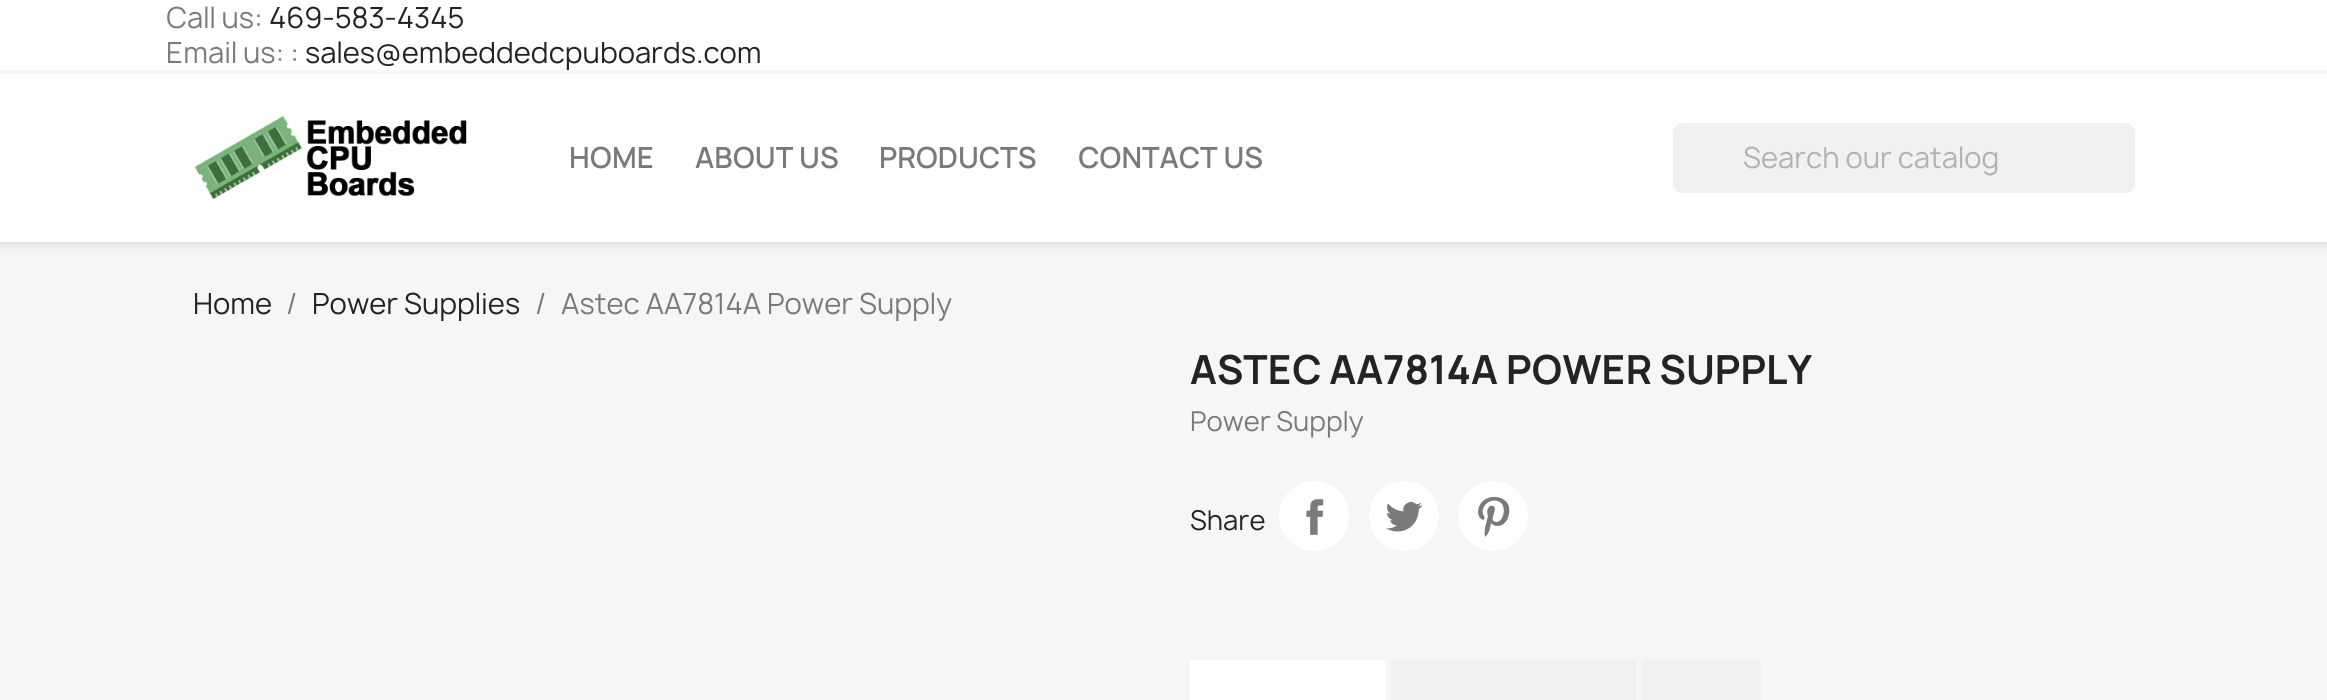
#include <cairo.h>
#include <math.h>
#include <stddef.h>

static cairo_t *c;
static void C(unsigned color){cairo_set_source_rgb(c, (color >> 16) / 255.0, (color >> 8 & 255) / 255.0, (color & 255) / 255.0);}
static void F(const char *family, double size, int italic, int bold){cairo_select_font_face(c, family, italic ? CAIRO_FONT_SLANT_ITALIC : CAIRO_FONT_SLANT_NORMAL,bold ? CAIRO_FONT_WEIGHT_BOLD : CAIRO_FONT_WEIGHT_NORMAL);cairo_set_font_size(c, size);}
static void T(double x, double y, const char *s){cairo_move_to(c, x, y);cairo_show_text(c, s);}
static void R(double x, double y, double w, double h){cairo_rectangle(c, x, y, w, h);cairo_fill(c);}
static void Q(double x, double y, double w, double h, double r){cairo_new_sub_path(c);cairo_arc(c, x + w - r, y + h - r, r, 0, M_PI / 2);cairo_arc(c, x + r, y + h - r, r, M_PI / 2, M_PI);cairo_arc(c, x + r, y + r, r, M_PI, 1.5 * M_PI);cairo_arc(c, x + w - r, y + r, r, 1.5 * M_PI, 2 * M_PI);cairo_close_path(c);}
static void S(double x, double y, double w, double h, double r, double blur, double alpha){cairo_push_group_with_content(c, CAIRO_CONTENT_ALPHA);cairo_set_operator(c, CAIRO_OPERATOR_SOURCE);for (int i = 15; i >= -15 && fmin(w, h) + blur * i / 3 > 0; i -= 2) {double e = blur * i / 6;cairo_set_source_rgba(c, 0, 0, 0, alpha * erfc((i - 1) / 8.5) / 2);Q(x - e, y - e, w + 2 * e, h + 2 * e, fmax(0, fmin(r + e + blur * .6, fmin(w, h) / 2 + e)));cairo_fill(c);}cairo_pattern_t *soft = cairo_pop_group(c);cairo_mask(c, soft);cairo_pattern_destroy(soft);}
static void I(const char *path, double x, double y, double w, double h){cairo_surface_t *image = cairo_image_surface_create_from_png(path);cairo_save(c);cairo_set_source_surface(c, image, x, y);cairo_rectangle(c, x, y, w, h);cairo_fill(c);cairo_restore(c);cairo_surface_destroy(image);}
int main(void) {
cairo_surface_t *surface = cairo_image_surface_create(CAIRO_FORMAT_RGB24, 2327, 700);
c = cairo_create(surface);
cairo_font_options_t *options = cairo_font_options_create();
cairo_font_options_set_hint_metrics(options, CAIRO_HINT_METRICS_OFF);
cairo_font_options_set_hint_style(options, CAIRO_HINT_STYLE_NONE);
cairo_set_font_options(c, options);
cairo_set_miter_limit(c, 4);
C(0xf6f6f6);
cairo_paint(c);
C(0x000000);
S(0,4,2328,241,0,4.5,.11);
C(0xffffff);
R(0,0,2327,242);
C(0xf6f6f6);
R(0,70,2327,4);
F("Manrope",28,0,0);
C(0x7a7a7a);
T(166,28,"Call us:");
C(0x232323);
T(269,28,"469-583-4345");
C(0x7a7a7a);
T(166,63,"Email us: :");
C(0x232323);
T(305,63,"sales@embeddedcpuboards.com");
I("1.png",195,116,272,84);
F("Manrope SemiBold",28,0,0);
C(0x7a7a7a);
T(569,168,"HOME");
T(695,168,"ABOUT US");
T(879,168,"PRODUCTS");
T(1078,168,"CONTACT US");
C(0xf1f1f1);
Q(1673,123,462,70,9);
cairo_fill(c);
F("Manrope",28,0,0);
C(0xb1b1b1);
T(1743,168,"Search our catalog");
C(0x232323);
T(193,314,"Home");
C(0x7a7a7a);
T(286,314,"/");
C(0x232323);
T(312,314,"Power Supplies");
C(0x7a7a7a);
T(535,314,"/");
T(561,314,"Astec AA7814A Power Supply");
F("Manrope",38.5,0,1);
C(0x232323);
T(1190,384,"ASTEC AA7814A POWER SUPPLY");
F("Manrope",26.25,0,0);
C(0x7a7a7a);
T(1190,431,"Power Supply");
C(0x232323);
T(1190,530,"Share");
C(0xffffff);
cairo_new_path(c);
cairo_arc(c,1314,516,35,0,2 * M_PI);
cairo_fill(c);
I("2.png",1306,499,18,36);
cairo_arc(c,1404,516,35,0,2 * M_PI);
cairo_fill(c);
I("3.png",1386,501,37,31);
cairo_arc(c,1493,516,35,0,2 * M_PI);
cairo_fill(c);
I("4.png",1478,496,32,41);
R(1190,660,196,40);
C(0xf1f1f1);
R(1391,660,245,40);
R(1642,660,119,40);
cairo_surface_write_to_png(surface, "o.png");
cairo_font_options_destroy(options);
cairo_destroy(c);
cairo_surface_destroy(surface);
return 0;
}
